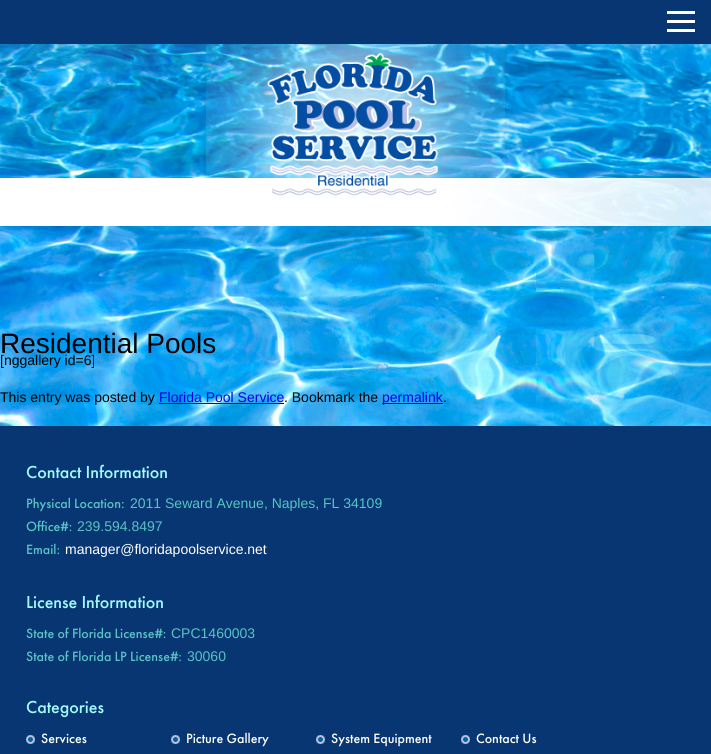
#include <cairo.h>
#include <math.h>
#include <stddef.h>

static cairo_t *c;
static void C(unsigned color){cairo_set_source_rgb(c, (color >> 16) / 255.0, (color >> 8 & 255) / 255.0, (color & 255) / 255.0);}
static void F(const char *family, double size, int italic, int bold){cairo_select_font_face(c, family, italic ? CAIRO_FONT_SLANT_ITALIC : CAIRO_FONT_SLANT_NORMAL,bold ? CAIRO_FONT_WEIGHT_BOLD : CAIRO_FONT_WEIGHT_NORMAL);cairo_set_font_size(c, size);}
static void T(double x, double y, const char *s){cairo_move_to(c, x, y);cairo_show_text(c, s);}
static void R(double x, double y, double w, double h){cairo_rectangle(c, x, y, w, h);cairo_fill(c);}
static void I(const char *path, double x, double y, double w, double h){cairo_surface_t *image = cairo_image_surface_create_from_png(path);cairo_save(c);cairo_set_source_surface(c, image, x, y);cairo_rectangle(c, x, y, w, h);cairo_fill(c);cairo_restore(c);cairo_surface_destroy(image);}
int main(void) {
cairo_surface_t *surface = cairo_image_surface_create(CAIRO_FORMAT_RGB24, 711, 754);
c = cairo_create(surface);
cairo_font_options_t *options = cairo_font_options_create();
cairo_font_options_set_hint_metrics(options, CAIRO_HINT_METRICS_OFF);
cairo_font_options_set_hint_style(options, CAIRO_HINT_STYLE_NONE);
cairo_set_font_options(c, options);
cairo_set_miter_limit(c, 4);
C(0x083672);
cairo_paint(c);
C(0xffffff);
R(667,20,28,3);
R(667,11,28,3);
R(667,29,28,3);
I("1.png",0,226,711,200);
I("2.png",0,44,711,182);
I("3.png",206,44,299,152);
F("Liberation Sans",28,0,0);
C(0x000000);
T(0,353,"Residential Pools");
F("Liberation Sans",14,0,0);
T(0,365,"[nggallery id=6]");
T(0,402,"This entry was posted by");
C(0x0000ee);
T(159,402,"Florida Pool Service");
R(159,403,125,1);
C(0x000000);
T(284,402,". Bookmark the");
C(0x0000ee);
R(382,403,61,1);
T(382,402,"permalink");
C(0x000000);
T(443,402,".");
F("Futura PT Medium",18,0,0);
C(0xa2fcff);
T(26,478,"Contact Information");
F("Futura PT Medium",14,0,0);
C(0x58c2c5);
T(26,508,"Physical Location:");
F("Liberation Sans",14,0,0);
T(130,508,"2011 Seward Avenue, Naples, FL 34109");
F("Futura PT Medium",14,0,0);
T(26,531,"Office#:");
F("Liberation Sans",14,0,0);
T(77,531,"239.594.8497");
F("Futura PT Medium",14,0,0);
T(26,554,"Email:");
F("Liberation Sans",14,0,0);
C(0xffffff);
T(65,554,"manager@floridapoolservice.net");
F("Futura PT Medium",18,0,0);
C(0xa2fcff);
T(26,608,"License Information");
F("Futura PT Medium",14,0,0);
C(0x58c2c5);
T(26,638,"State of Florida License#:");
F("Liberation Sans",14,0,0);
T(171,638,"CPC1460003");
F("Futura PT Medium",14,0,0);
T(26,661,"State of Florida LP License#:");
F("Liberation Sans",14,0,0);
T(187,661,"30060");
F("Futura PT Medium",18,0,0);
C(0xa2fcff);
T(26,713,"Categories");
I("4.png",26,735,9,9);
F("Futura PT Medium",14,0,0);
C(0xffffff);
T(41,743,"Services");
I("4.png",171,735,9,9);
T(186,743,"Picture Gallery");
I("4.png",316,735,9,9);
T(331,743,"System Equipment");
I("4.png",461,735,9,9);
T(476,743,"Contact Us");
cairo_surface_write_to_png(surface, "o.png");
cairo_font_options_destroy(options);
cairo_destroy(c);
cairo_surface_destroy(surface);
return 0;
}
